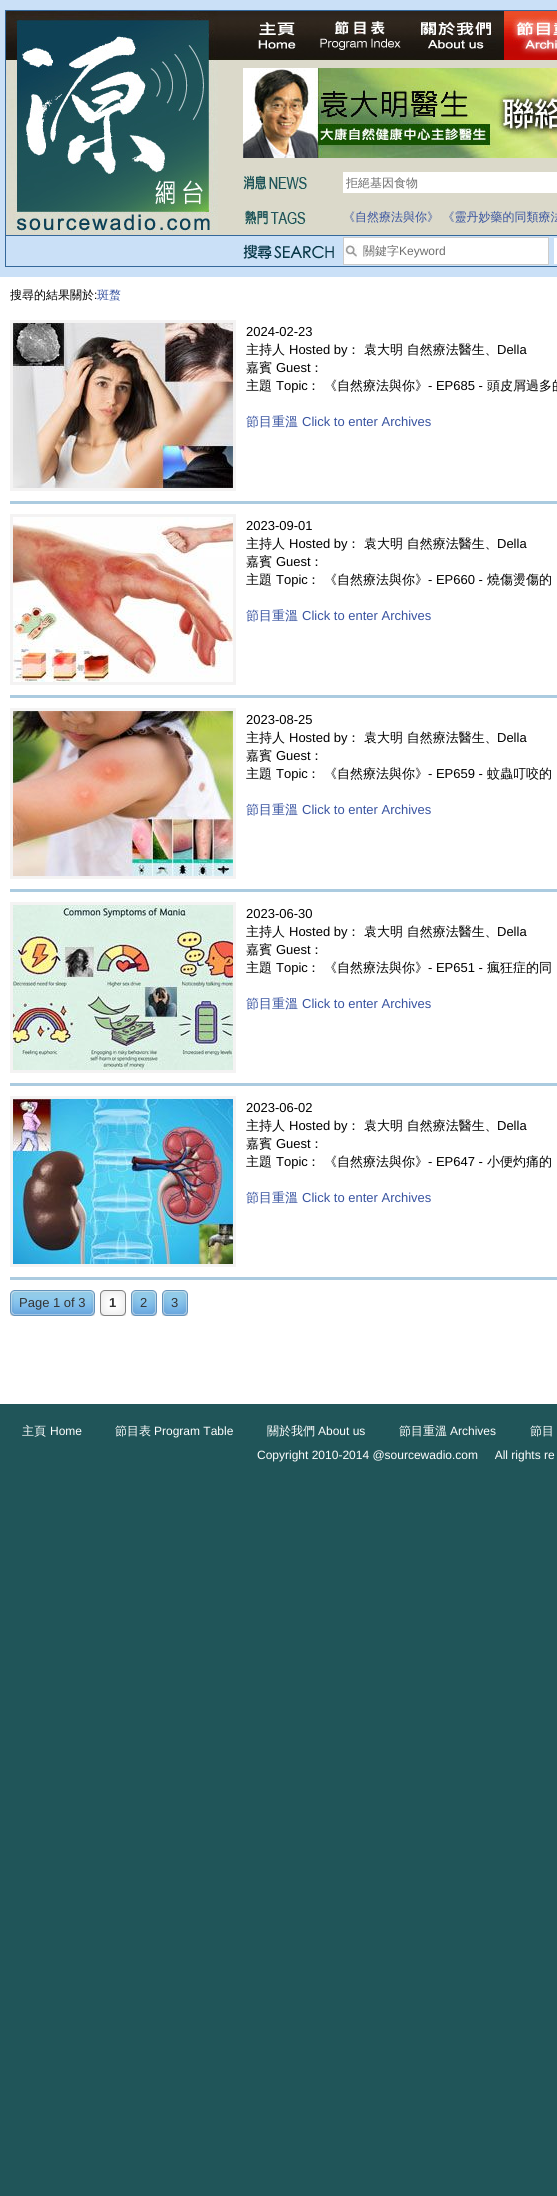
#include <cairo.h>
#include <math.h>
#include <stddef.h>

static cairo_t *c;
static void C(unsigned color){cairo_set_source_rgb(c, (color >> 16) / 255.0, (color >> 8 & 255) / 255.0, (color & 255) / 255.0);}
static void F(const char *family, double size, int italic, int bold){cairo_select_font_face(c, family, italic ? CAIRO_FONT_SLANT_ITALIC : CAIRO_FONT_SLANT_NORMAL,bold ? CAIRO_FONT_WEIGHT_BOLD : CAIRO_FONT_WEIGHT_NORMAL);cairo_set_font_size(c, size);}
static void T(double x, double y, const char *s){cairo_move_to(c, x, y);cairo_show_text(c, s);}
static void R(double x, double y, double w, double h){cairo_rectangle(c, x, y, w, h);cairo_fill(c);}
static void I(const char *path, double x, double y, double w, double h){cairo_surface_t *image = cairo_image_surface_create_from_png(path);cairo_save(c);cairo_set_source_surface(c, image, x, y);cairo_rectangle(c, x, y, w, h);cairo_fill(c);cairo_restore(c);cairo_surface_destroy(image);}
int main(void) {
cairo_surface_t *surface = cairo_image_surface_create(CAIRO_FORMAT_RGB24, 557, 2196);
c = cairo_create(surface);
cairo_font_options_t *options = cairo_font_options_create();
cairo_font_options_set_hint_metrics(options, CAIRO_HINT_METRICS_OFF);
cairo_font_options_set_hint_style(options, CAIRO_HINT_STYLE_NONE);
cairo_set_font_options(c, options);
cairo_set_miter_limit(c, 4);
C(0x205559);
cairo_paint(c);
C(0xcae0f7);
R(0,0,557,277);
C(0xdbd9ca);
R(6,60,551,175);
I("1.png",218,11,286,49);
cairo_rectangle(c,5.5,10.5,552,256);
C(0x34689a);
cairo_set_line_width(c,1);
cairo_stroke(c);
I("2.png",6,11,212,222);
I("3.png",257,20,47,40);
I("4.png",319,19,82,32);
I("5.png",416,19,80,41);
I("6.png",504,11,53,49);
I("7.png",243,68,314,90);
I("8.png",243,175,64,15);
C(0xffffff);
R(343,172,214,21);
F("WenQuanYi Zen Hei Medium",12,0,0);
C(0x6e6e6e);
T(346,187,"拒絕基因食物");
I("9.png",243,210,64,15);
C(0x3853a0);
T(343,221,"《自然療法與你》 《靈丹妙藥的同類療法");
C(0x34689a);
R(6,235,551,1);
I("10.png",243,244,91,15);
C(0xffffff);
cairo_rectangle(c,343.5,237.5,205,27);
cairo_fill_preserve(c);
C(0xcdccca);
cairo_stroke(c);
I("11.png",344,244,14,16);
C(0x6e6e6e);
T(363,255,"關鍵字");
F("Liberation Sans",12,0,0);
T(399,255,"Keyword");
C(0xffffff);
R(554,238,3,26);
R(0,277,557,1127);
F("WenQuanYi Zen Hei Medium",12,0,0);
C(0x000000);
T(10,299,"搜尋的結果關於");
F("Liberation Sans",12,0,0);
T(94,299,":");
F("WenQuanYi Zen Hei Medium",12,0,0);
C(0x3853a0);
T(97,299,"斑蝥");
C(0xabcbe0);
R(10,501,547,3);
cairo_rectangle(c,11.5,321.5,223,168);
C(0xf4f3f3);
cairo_set_line_width(c,3);
cairo_stroke(c);
I("12.png",13,323,220,165);
F("Liberation Sans",13,0,0);
C(0x000000);
T(246,336,"2024-02-23");
F("WenQuanYi Zen Hei Medium",13,0,0);
T(246,354,"主持人");
F("Liberation Sans",13,0,0);
T(289,354,"Hosted by");
F("WenQuanYi Zen Hei Medium",13,0,0);
T(347,354,"： 袁大明 自然療法醫生、");
F("Liberation Sans",13,0,0);
T(497,354,"Della");
F("WenQuanYi Zen Hei Medium",13,0,0);
T(246,372,"嘉賓");
F("Liberation Sans",13,0,0);
T(276,372,"Guest");
F("WenQuanYi Zen Hei Medium",13,0,0);
T(310,372,"：");
T(246,390,"主題");
F("Liberation Sans",13,0,0);
T(276,390,"Topic");
F("WenQuanYi Zen Hei Medium",13,0,0);
T(307,390,"： 《自然療法與你》");
F("Liberation Sans",13,0,0);
T(428,390,"- EP685 -");
F("WenQuanYi Zen Hei Medium",13,0,0);
T(487,390,"頭皮屑過多的");
C(0x3853a0);
T(246,426,"節目重溫");
F("Liberation Sans",13,0,0);
T(302,426,"Click to enter Archives");
C(0xabcbe0);
R(10,695,547,3);
cairo_rectangle(c,11.5,515.5,223,168);
C(0xf4f3f3);
cairo_stroke(c);
I("13.png",13,517,220,165);
C(0x000000);
T(246,530,"2023-09-01");
F("WenQuanYi Zen Hei Medium",13,0,0);
T(246,548,"主持人");
F("Liberation Sans",13,0,0);
T(289,548,"Hosted by");
F("WenQuanYi Zen Hei Medium",13,0,0);
T(347,548,"： 袁大明 自然療法醫生、");
F("Liberation Sans",13,0,0);
T(497,548,"Della");
F("WenQuanYi Zen Hei Medium",13,0,0);
T(246,566,"嘉賓");
F("Liberation Sans",13,0,0);
T(276,566,"Guest");
F("WenQuanYi Zen Hei Medium",13,0,0);
T(310,566,"：");
T(246,584,"主題");
F("Liberation Sans",13,0,0);
T(276,584,"Topic");
F("WenQuanYi Zen Hei Medium",13,0,0);
T(307,584,"： 《自然療法與你》");
F("Liberation Sans",13,0,0);
T(428,584,"- EP660 -");
F("WenQuanYi Zen Hei Medium",13,0,0);
T(487,584,"燒傷燙傷的");
C(0x3853a0);
T(246,620,"節目重溫");
F("Liberation Sans",13,0,0);
T(302,620,"Click to enter Archives");
C(0xabcbe0);
R(10,889,547,3);
cairo_rectangle(c,11.5,709.5,223,168);
C(0xf4f3f3);
cairo_stroke(c);
I("14.png",13,711,220,165);
C(0x000000);
T(246,724,"2023-08-25");
F("WenQuanYi Zen Hei Medium",13,0,0);
T(246,742,"主持人");
F("Liberation Sans",13,0,0);
T(289,742,"Hosted by");
F("WenQuanYi Zen Hei Medium",13,0,0);
T(347,742,"： 袁大明 自然療法醫生、");
F("Liberation Sans",13,0,0);
T(497,742,"Della");
F("WenQuanYi Zen Hei Medium",13,0,0);
T(246,760,"嘉賓");
F("Liberation Sans",13,0,0);
T(276,760,"Guest");
F("WenQuanYi Zen Hei Medium",13,0,0);
T(310,760,"：");
T(246,778,"主題");
F("Liberation Sans",13,0,0);
T(276,778,"Topic");
F("WenQuanYi Zen Hei Medium",13,0,0);
T(307,778,"： 《自然療法與你》");
F("Liberation Sans",13,0,0);
T(428,778,"- EP659 -");
F("WenQuanYi Zen Hei Medium",13,0,0);
T(487,778,"蚊蟲叮咬的");
C(0x3853a0);
T(246,814,"節目重溫");
F("Liberation Sans",13,0,0);
T(302,814,"Click to enter Archives");
C(0xabcbe0);
R(10,1083,547,3);
cairo_rectangle(c,11.5,903.5,223,168);
C(0xf4f3f3);
cairo_stroke(c);
I("15.png",13,905,220,165);
C(0x000000);
T(246,918,"2023-06-30");
F("WenQuanYi Zen Hei Medium",13,0,0);
T(246,936,"主持人");
F("Liberation Sans",13,0,0);
T(289,936,"Hosted by");
F("WenQuanYi Zen Hei Medium",13,0,0);
T(347,936,"： 袁大明 自然療法醫生、");
F("Liberation Sans",13,0,0);
T(497,936,"Della");
F("WenQuanYi Zen Hei Medium",13,0,0);
T(246,954,"嘉賓");
F("Liberation Sans",13,0,0);
T(276,954,"Guest");
F("WenQuanYi Zen Hei Medium",13,0,0);
T(310,954,"：");
T(246,972,"主題");
F("Liberation Sans",13,0,0);
T(276,972,"Topic");
F("WenQuanYi Zen Hei Medium",13,0,0);
T(307,972,"： 《自然療法與你》");
F("Liberation Sans",13,0,0);
T(428,972,"- EP651 -");
F("WenQuanYi Zen Hei Medium",13,0,0);
T(487,972,"瘋狂症的同");
C(0x3853a0);
T(246,1008,"節目重溫");
F("Liberation Sans",13,0,0);
T(302,1008,"Click to enter Archives");
C(0xabcbe0);
R(10,1277,547,3);
cairo_rectangle(c,11.5,1097.5,223,168);
C(0xf4f3f3);
cairo_stroke(c);
I("16.png",13,1099,220,165);
C(0x000000);
T(246,1112,"2023-06-02");
F("WenQuanYi Zen Hei Medium",13,0,0);
T(246,1130,"主持人");
F("Liberation Sans",13,0,0);
T(289,1130,"Hosted by");
F("WenQuanYi Zen Hei Medium",13,0,0);
T(347,1130,"： 袁大明 自然療法醫生、");
F("Liberation Sans",13,0,0);
T(497,1130,"Della");
F("WenQuanYi Zen Hei Medium",13,0,0);
T(246,1148,"嘉賓");
F("Liberation Sans",13,0,0);
T(276,1148,"Guest");
F("WenQuanYi Zen Hei Medium",13,0,0);
T(310,1148,"：");
T(246,1166,"主題");
F("Liberation Sans",13,0,0);
T(276,1166,"Topic");
F("WenQuanYi Zen Hei Medium",13,0,0);
T(307,1166,"： 《自然療法與你》");
F("Liberation Sans",13,0,0);
T(428,1166,"- EP647 -");
F("WenQuanYi Zen Hei Medium",13,0,0);
T(487,1166,"小便灼痛的");
C(0x3853a0);
T(246,1202,"節目重溫");
F("Liberation Sans",13,0,0);
T(302,1202,"Click to enter Archives");
I("17.png",10,1290,4,26);
I("18.png",14,1290,77,26);
C(0x333333);
T(19,1307,"Page 1 of 3");
I("19.png",91,1290,4,26);
I("20.png",100,1290,26,26);
F("Liberation Sans",13,0,1);
T(109,1307,"1");
I("21.png",131,1290,26,26);
F("Liberation Sans",13,0,0);
T(140,1307,"2");
I("21.png",162,1290,26,26);
T(171,1307,"3");
F("WenQuanYi Zen Hei Medium",12,0,0);
C(0xffffff);
T(22,1435,"主頁");
F("Liberation Sans",12,0,0);
T(50,1435,"Home");
F("WenQuanYi Zen Hei Medium",12,0,0);
T(115,1435,"節目表");
F("Liberation Sans",12,0,0);
T(154,1435,"Program Table");
F("WenQuanYi Zen Hei Medium",12,0,0);
T(267,1435,"關於我們");
F("Liberation Sans",12,0,0);
T(318,1435,"About us");
F("WenQuanYi Zen Hei Medium",12,0,0);
T(399,1435,"節目重溫");
F("Liberation Sans",12,0,0);
T(450,1435,"Archives");
F("WenQuanYi Zen Hei Medium",12,0,0);
T(530,1435,"節目");
F("Liberation Sans",12,0,0);
T(257,1459,"Copyright 2010-2014 @sourcewadio.com     All rights re");
cairo_surface_write_to_png(surface, "o.png");
cairo_font_options_destroy(options);
cairo_destroy(c);
cairo_surface_destroy(surface);
return 0;
}
